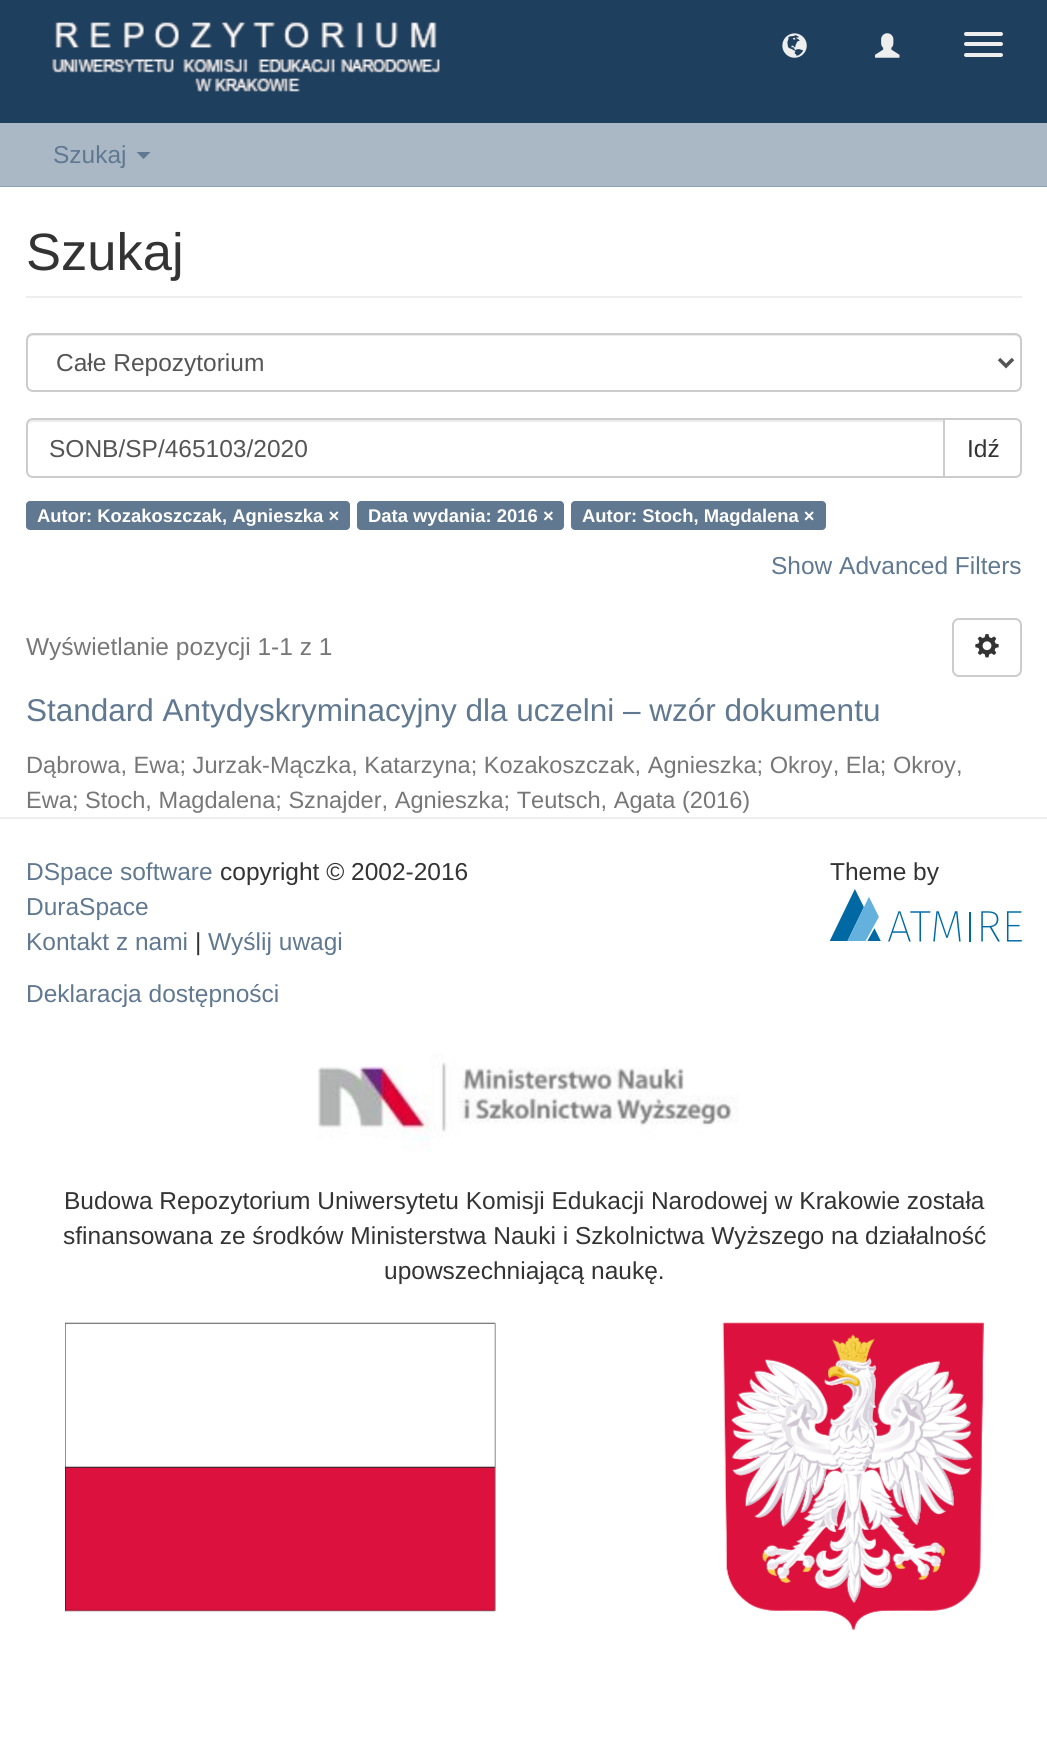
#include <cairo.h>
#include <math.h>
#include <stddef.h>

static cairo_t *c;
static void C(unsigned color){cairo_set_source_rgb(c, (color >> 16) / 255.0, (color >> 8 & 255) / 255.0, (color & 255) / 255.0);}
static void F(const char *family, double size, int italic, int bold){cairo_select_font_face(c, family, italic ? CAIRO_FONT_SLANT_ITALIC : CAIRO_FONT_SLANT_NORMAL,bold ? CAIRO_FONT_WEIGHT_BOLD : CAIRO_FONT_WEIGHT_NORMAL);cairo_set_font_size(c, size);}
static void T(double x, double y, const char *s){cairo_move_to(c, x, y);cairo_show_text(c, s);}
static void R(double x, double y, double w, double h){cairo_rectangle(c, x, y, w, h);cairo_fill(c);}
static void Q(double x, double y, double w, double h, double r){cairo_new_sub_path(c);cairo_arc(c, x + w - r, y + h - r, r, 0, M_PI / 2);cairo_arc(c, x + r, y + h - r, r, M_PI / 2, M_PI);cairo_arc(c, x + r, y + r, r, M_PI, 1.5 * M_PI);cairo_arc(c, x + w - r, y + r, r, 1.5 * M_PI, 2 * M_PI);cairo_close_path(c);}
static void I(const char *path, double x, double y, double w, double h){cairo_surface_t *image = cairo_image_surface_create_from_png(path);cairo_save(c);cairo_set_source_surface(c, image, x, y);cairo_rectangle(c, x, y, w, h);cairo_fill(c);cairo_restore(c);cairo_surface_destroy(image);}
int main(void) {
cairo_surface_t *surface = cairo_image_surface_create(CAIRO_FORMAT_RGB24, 1047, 1743);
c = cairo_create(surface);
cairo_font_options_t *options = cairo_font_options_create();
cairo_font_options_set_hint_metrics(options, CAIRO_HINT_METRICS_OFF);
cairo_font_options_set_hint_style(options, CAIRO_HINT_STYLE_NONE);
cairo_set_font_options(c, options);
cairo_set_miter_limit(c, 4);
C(0xffffff);
cairo_paint(c);
C(0x1f3f5e);
R(0,0,1047,123);
I("1.png",52,22,388,70);
I("2.png",782,33,25,25);
I("3.png",875,33,25,25);
C(0xeeeeee);
Q(964,32,39,4,2);
cairo_fill(c);
Q(964,42,39,4,2);
cairo_fill(c);
Q(964,53,39,4,2);
cairo_fill(c);
C(0xaab8c6);
R(0,123,1047,63);
C(0x8b9eb2);
R(0,186,1047,1);
F("Liberation Sans",24.5,0,0);
C(0x607890);
T(53,163,"Szukaj");
cairo_new_path(c);
cairo_move_to(c,136.5,152);
cairo_line_to(c,150.5,152);
cairo_line_to(c,143.5,159);
cairo_close_path(c);
cairo_fill(c);
C(0xeeeeee);
R(26,296,996,2);
F("Liberation Sans",52.5,0,0);
C(0x333333);
T(26,270,"Szukaj");
C(0xececec);
cairo_new_path(c);
cairo_move_to(c,33,336);
cairo_line_to(c,1015,336);
cairo_curve_to(c,1018,336,1020,338,1020,341);
cairo_line_to(c,1020,339);
cairo_curve_to(c,1020,336,1018,334,1015,334);
cairo_line_to(c,33,334);
cairo_curve_to(c,30,334,28,336,28,339);
cairo_line_to(c,28,341);
cairo_curve_to(c,28,338,30,336,33,336);
cairo_close_path(c);
cairo_fill(c);
Q(27,334,994,57,6);
C(0xcccccc);
cairo_stroke(c);
cairo_new_path(c);
cairo_move_to(c,999,359);
cairo_line_to(c,1006,366);
cairo_line_to(c,1013,359);
C(0x555555);
cairo_set_line_width(c,3.5);
cairo_stroke(c);
F("Liberation Sans",24.5,0,0);
T(56,371,"Całe Repozytorium");
cairo_new_path(c);
cairo_move_to(c,944,419);
cairo_line_to(c,1015,419);
cairo_curve_to(c,1018.5,419,1021,421.5,1021,425);
cairo_line_to(c,1021,471);
cairo_curve_to(c,1021,474.5,1018.5,477,1015,477);
cairo_line_to(c,944,477);
cairo_close_path(c);
C(0xcccccc);
cairo_set_line_width(c,2);
cairo_stroke(c);
C(0xffffff);
cairo_new_path(c);
cairo_move_to(c,33,418);
cairo_line_to(c,945,418);
cairo_line_to(c,945,478);
cairo_line_to(c,33,478);
cairo_curve_to(c,29,478,26,475,26,471);
cairo_line_to(c,26,425);
cairo_curve_to(c,26,421,29,418,33,418);
cairo_close_path(c);
cairo_fill(c);
C(0xececec);
cairo_new_path(c);
cairo_move_to(c,33,422);
cairo_line_to(c,943,422);
cairo_line_to(c,943,420);
cairo_line_to(c,33,420);
cairo_curve_to(c,29,420,28,424,28,427);
cairo_curve_to(c,28,424,30,422,33,422);
cairo_close_path(c);
cairo_fill(c);
cairo_new_path(c);
cairo_move_to(c,33,419);
cairo_line_to(c,944,419);
cairo_line_to(c,944,477);
cairo_line_to(c,33,477);
cairo_curve_to(c,29.5,477,27,474.5,27,471);
cairo_line_to(c,27,425);
cairo_curve_to(c,27,421.5,29.5,419,33,419);
cairo_close_path(c);
C(0xcccccc);
cairo_stroke(c);
C(0x555555);
T(49,457,"SONB/SP/465103/2020");
C(0x333333);
T(967,457,"Idź");
C(0x607890);
Q(26,501,324,29,4);
cairo_fill(c);
F("Liberation Sans",18.4,0,1);
C(0xffffff);
T(37,522,"Autor: Kozakoszczak, Agnieszka ×");
C(0x607890);
Q(357,501,207,29,4);
cairo_fill(c);
C(0xffffff);
T(368,522,"Data wydania: 2016 ×");
C(0x607890);
Q(571,501,255,29,4);
cairo_fill(c);
C(0xffffff);
T(582,522,"Autor: Stoch, Magdalena ×");
F("Liberation Sans",24.5,0,0);
C(0x607890);
T(771,574,"Show Advanced Filters");
C(0x777777);
T(26,655,"Wyświetlanie pozycji 1-1 z 1");
Q(953,619,68,57,6);
C(0xcccccc);
cairo_stroke(c);
I("4.png",975,634,24,24);
F("Liberation Sans",31.5,0,0);
C(0x607890);
T(26,721,"Standard Antydyskryminacyjny dla uczelni – wzór dokumentu");
F("Liberation Sans",23.6,0,0);
C(0x777777);
T(26,773,"Dąbrowa, Ewa; Jurzak-Mączka, Katarzyna; Kozakoszczak, Agnieszka; Okroy, Ela; Okroy,");
T(26,808,"Ewa; Stoch, Magdalena; Sznajder, Agnieszka; Teutsch, Agata (2016)");
F("Liberation Sans",24.5,0,0);
C(0x607890);
T(26,880,"DSpace software");
C(0x333333);
T(220,880,"copyright © 2002-2016");
C(0x607890);
T(26,915,"DuraSpace");
T(26,950,"Kontakt z nami");
C(0x333333);
T(195,950,"|");
C(0x607890);
T(208,950,"Wyślij uwagi");
T(26,1002,"Deklaracja dostępności");
C(0x333333);
T(830,880,"Theme by");
I("5.png",830,889,192,53);
C(0xeeeeee);
R(0,817,1047,2);
I("6.png",318,1054,421,98);
C(0x333333);
T(64,1209,"Budowa Repozytorium Uniwersytetu Komisji Edukacji Narodowej w Krakowie została");
T(63,1244,"sfinansowana ze środków Ministerstwa Nauki i Szkolnictwa Wyższego na działalność");
T(384,1279,"upowszechniającą naukę.");
I("7.png",65,1322,919,308);
cairo_surface_write_to_png(surface, "o.png");
cairo_font_options_destroy(options);
cairo_destroy(c);
cairo_surface_destroy(surface);
return 0;
}
